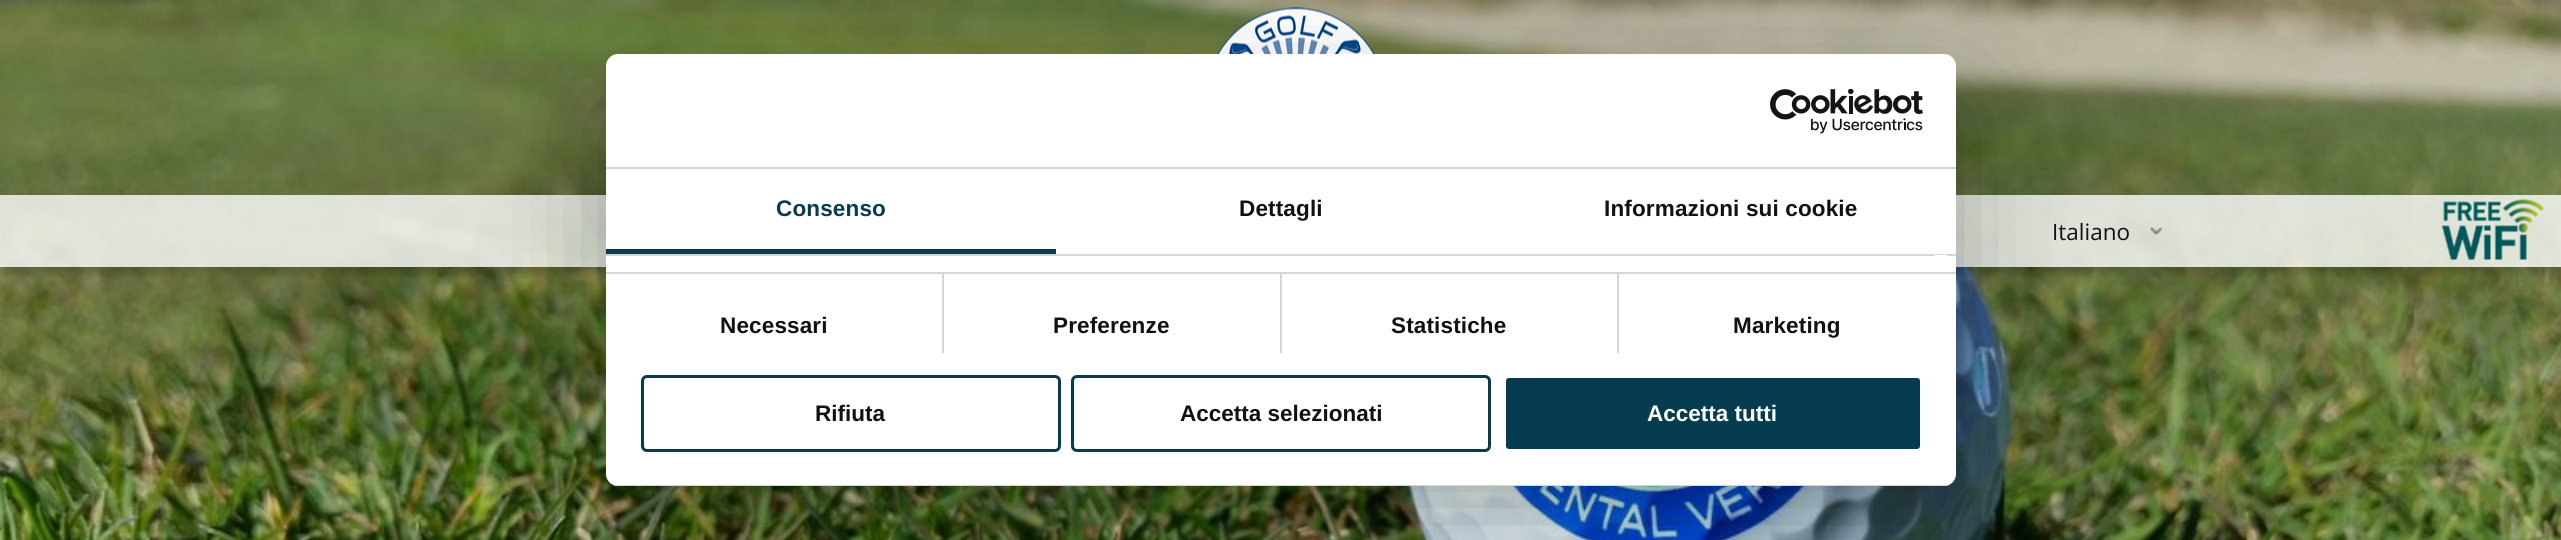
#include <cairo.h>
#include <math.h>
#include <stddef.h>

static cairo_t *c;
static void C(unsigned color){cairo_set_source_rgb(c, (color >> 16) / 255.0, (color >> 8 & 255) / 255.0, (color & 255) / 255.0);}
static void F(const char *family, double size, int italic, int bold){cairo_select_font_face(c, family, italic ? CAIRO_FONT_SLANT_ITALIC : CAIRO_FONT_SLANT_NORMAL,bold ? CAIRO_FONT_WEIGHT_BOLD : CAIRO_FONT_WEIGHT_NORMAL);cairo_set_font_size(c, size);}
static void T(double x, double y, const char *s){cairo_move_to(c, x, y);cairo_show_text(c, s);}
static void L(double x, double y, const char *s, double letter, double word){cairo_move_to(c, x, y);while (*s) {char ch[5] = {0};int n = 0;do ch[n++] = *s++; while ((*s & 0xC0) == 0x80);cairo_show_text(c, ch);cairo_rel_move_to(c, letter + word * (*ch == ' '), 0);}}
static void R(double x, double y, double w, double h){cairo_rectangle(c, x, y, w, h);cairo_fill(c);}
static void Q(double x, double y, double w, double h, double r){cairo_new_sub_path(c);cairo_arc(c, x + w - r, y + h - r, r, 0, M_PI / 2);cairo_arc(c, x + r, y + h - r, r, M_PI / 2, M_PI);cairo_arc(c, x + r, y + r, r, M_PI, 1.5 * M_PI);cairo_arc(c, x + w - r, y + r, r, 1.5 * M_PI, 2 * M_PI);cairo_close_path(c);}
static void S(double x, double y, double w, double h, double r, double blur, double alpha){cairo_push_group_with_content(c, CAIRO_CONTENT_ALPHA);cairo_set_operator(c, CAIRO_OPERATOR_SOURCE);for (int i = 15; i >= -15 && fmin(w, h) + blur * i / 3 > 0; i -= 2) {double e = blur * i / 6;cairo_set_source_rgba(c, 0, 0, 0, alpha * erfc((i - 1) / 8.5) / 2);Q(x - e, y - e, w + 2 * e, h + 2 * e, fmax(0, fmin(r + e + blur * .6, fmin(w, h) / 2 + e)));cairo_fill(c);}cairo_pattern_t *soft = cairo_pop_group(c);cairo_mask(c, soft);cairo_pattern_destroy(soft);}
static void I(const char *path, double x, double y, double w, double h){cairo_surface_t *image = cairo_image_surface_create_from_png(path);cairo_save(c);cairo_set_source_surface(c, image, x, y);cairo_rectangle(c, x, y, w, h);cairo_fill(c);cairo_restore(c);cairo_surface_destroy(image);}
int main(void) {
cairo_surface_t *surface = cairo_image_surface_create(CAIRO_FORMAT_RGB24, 2561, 540);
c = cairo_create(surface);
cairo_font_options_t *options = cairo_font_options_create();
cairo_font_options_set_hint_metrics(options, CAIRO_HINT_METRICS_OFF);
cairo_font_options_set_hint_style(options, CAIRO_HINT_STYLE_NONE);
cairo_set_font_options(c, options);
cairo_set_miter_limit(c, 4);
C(0xffffff);
cairo_paint(c);
I("1.png",0,0,2561,540);
I("3.png",1217,7,158,47);
cairo_save(c);
cairo_rectangle(c,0,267,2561,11);
cairo_clip(c);
C(0x000000);
S(0,201,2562,72,0,4.5,.18);
cairo_restore(c);
cairo_set_source_rgba(c,1,1,1,0.8);
R(0,195,2561,72);
C(0x000000);
S(606,102,1350,432,12,51,.3);
C(0xffffff);
Q(606,54,1350,432,12);
cairo_fill(c);
C(0xd6d6d6);
R(606,167,1350,2);
I("2.png",1770,89,153,45);
R(606,254,1350,2);
C(0x063c50);
R(606,249,450,5);
F("Liberation Sans",22.5,0,1);
L(776,216,"Consenso",.15,0);
C(0x111111);
L(1239,216,"Dettagli",.15,0);
L(1604,216,"Informazioni sui cookie",.15,0);
C(0xd6d6d6);
R(942,273,2,80);
R(1280,273,2,80);
R(1617,273,2,80);
R(606,272,1350,2);
C(0xffffff);
R(1934,255,13,1);
C(0x111111);
L(720,333,"Necessari",.15,0);
L(1053,333,"Preferenze",.15,0);
L(1391,333,"Statistiche",.15,0);
L(1733,333,"Marketing",.15,0);
cairo_save(c);
Q(606,54,1350,432,12);
cairo_clip(c);
C(0xd6d6d6);
R(606,485,1350,1);
cairo_restore(c);
Q(642.5,376.5,417,74,4.5);
C(0x063c50);
cairo_set_line_width(c,3);
cairo_stroke(c);
C(0x111111);
T(815,421,"Rifiuta");
Q(1072.5,376.5,417,74,4.5);
C(0x063c50);
cairo_stroke(c);
C(0x111111);
T(1180,421,"Accetta selezionati");
C(0x063c50);
Q(1504.5,376.5,417,74,4.5);
cairo_fill_preserve(c);
C(0xffffff);
cairo_stroke(c);
T(1647,421,"Accetta tutti");
F("Open Sans",22.5,0,0);
C(0x111111);
T(2052,240,"Italiano");
I("4.png",2150,227,13,8);
I("5.png",2441,199,104,61);
cairo_surface_write_to_png(surface, "o.png");
cairo_font_options_destroy(options);
cairo_destroy(c);
cairo_surface_destroy(surface);
return 0;
}
